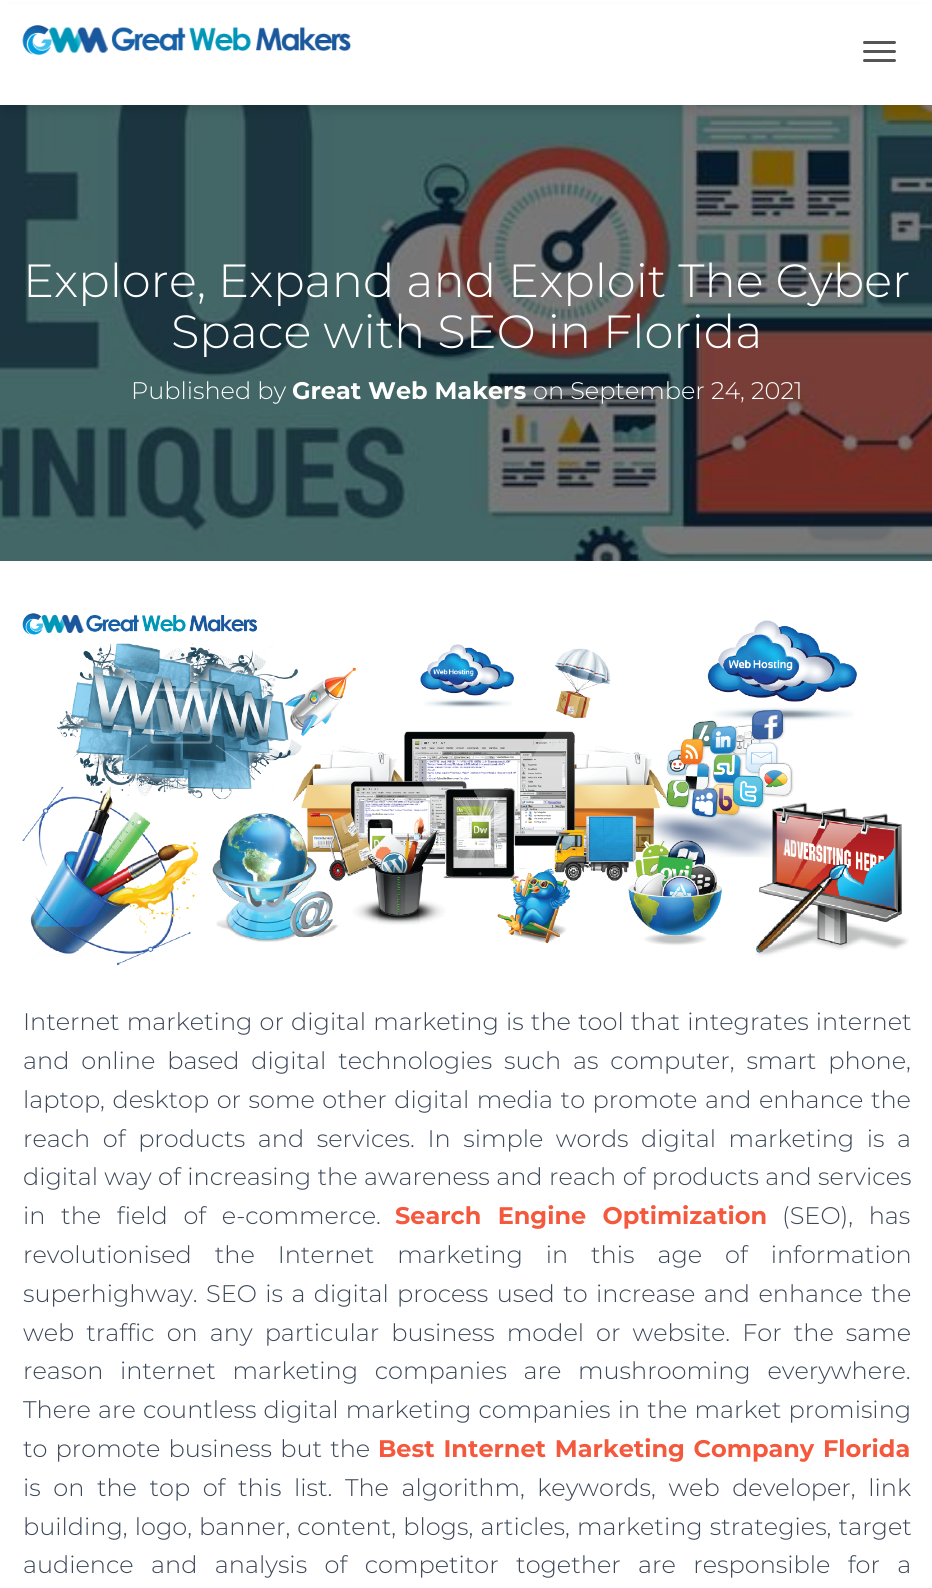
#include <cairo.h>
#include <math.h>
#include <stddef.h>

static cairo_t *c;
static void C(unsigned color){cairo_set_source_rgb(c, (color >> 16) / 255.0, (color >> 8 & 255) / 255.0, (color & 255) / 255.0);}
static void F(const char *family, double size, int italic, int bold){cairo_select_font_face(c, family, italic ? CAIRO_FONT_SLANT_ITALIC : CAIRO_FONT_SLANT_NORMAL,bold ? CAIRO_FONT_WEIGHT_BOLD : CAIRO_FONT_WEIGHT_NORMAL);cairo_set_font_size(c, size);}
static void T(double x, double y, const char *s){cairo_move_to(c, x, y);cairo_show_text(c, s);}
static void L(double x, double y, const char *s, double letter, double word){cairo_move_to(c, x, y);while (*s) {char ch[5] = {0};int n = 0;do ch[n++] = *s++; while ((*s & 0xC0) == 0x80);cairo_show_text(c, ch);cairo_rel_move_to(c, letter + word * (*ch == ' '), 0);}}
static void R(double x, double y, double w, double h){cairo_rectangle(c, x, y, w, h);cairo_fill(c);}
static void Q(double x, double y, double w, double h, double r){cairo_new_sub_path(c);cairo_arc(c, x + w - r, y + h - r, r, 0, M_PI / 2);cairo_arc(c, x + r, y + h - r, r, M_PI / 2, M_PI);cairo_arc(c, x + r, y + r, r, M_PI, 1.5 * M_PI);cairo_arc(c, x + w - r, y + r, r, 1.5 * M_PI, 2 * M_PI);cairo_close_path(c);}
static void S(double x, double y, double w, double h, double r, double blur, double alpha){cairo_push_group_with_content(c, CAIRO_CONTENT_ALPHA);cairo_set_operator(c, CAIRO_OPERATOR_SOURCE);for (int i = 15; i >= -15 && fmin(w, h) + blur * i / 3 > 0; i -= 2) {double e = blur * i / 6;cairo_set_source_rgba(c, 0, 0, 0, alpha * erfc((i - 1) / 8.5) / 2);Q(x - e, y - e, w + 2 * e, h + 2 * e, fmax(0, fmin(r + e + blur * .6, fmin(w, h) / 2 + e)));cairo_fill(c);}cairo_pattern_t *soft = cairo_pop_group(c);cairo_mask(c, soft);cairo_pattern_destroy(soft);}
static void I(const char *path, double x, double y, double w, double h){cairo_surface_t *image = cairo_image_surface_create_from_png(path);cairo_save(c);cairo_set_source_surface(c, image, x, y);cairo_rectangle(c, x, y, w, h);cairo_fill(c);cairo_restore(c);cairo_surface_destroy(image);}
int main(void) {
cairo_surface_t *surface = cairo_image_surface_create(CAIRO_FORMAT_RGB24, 932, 1588);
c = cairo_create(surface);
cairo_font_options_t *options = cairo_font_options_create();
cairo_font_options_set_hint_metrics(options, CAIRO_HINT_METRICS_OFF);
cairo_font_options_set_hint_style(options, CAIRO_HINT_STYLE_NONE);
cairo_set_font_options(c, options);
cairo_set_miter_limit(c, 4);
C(0xffffff);
cairo_paint(c);
I("2.png",0,105,932,456);
C(0x000000);
S(6,15,921,93,0,7.5,.15);
C(0xffffff);
R(0,4,932,101);
I("1.png",22,25,330,30);
C(0x555555);
Q(863,41,33,3,1.5);
cairo_fill(c);
Q(863,50,33,3,1.5);
cairo_fill(c);
Q(863,59,33,3,1.5);
cairo_fill(c);
F("Montserrat Light",46.5,0,0);
C(0xffffff);
T(23,297,"Explore, Expand and Exploit The Cyber");
T(171,348,"Space with SEO in Florida");
F("Montserrat Light",24,0,0);
T(131,399,"Published by");
F("Montserrat",24,0,1);
T(292,399,"Great Web Makers");
F("Montserrat Light",24,0,0);
T(533,399,"on September 24, 2021");
I("3.png",22,613,887,353);
C(0x3c4858);
L(23,1030,"Internet marketing or digital marketing is the tool that integrates internet",0,1);
L(23,1069,"and online based digital technologies such as computer, smart phone,",0,5.75);
L(23,1108,"laptop, desktop or some other digital media to promote and enhance the",0,1.4);
L(23,1147,"reach of products and services. In simple words digital marketing is a",0,6.4);
L(23,1185,"digital way of increasing the awareness and reach of products and services",0,.25);
L(23,1224,"in the field of e-commerce.",0,9.5);
F("Montserrat",24,0,1);
C(0xf5593d);
L(395,1224,"Search Engine Optimization",0,9.5);
F("Montserrat Light",24,0,0);
C(0x3c4858);
L(782,1224,"(SEO), has",0,9.5);
L(23,1263,"revolutionised the Internet marketing in this age of information",0,16.75);
L(23,1302,"superhighway. SEO is a digital process used to increase and enhance the",0,2.25);
L(23,1341,"web traffic on any particular business model or website. For the same",0,5.9);
L(23,1379,"reason internet marketing companies are mushrooming everywhere.",0,10.5);
L(23,1418,"There are countless digital marketing companies in the market promising",0,1);
L(23,1457,"to promote business but the",0,2);
F("Montserrat",24,0,1);
C(0xf5593d);
L(378,1457,"Best Internet Marketing Company Florida",0,2);
F("Montserrat Light",24,0,0);
C(0x3c4858);
L(23,1496,"is on the top of this list. The algorithm, keywords, web developer, link",0,6.4);
L(23,1535,"building, logo, banner, content, blogs, articles, marketing strategies, target",0,1);
L(23,1573,"audience and analysis of competitor together are responsible for a",0,11.25);
cairo_surface_write_to_png(surface, "o.png");
cairo_font_options_destroy(options);
cairo_destroy(c);
cairo_surface_destroy(surface);
return 0;
}
